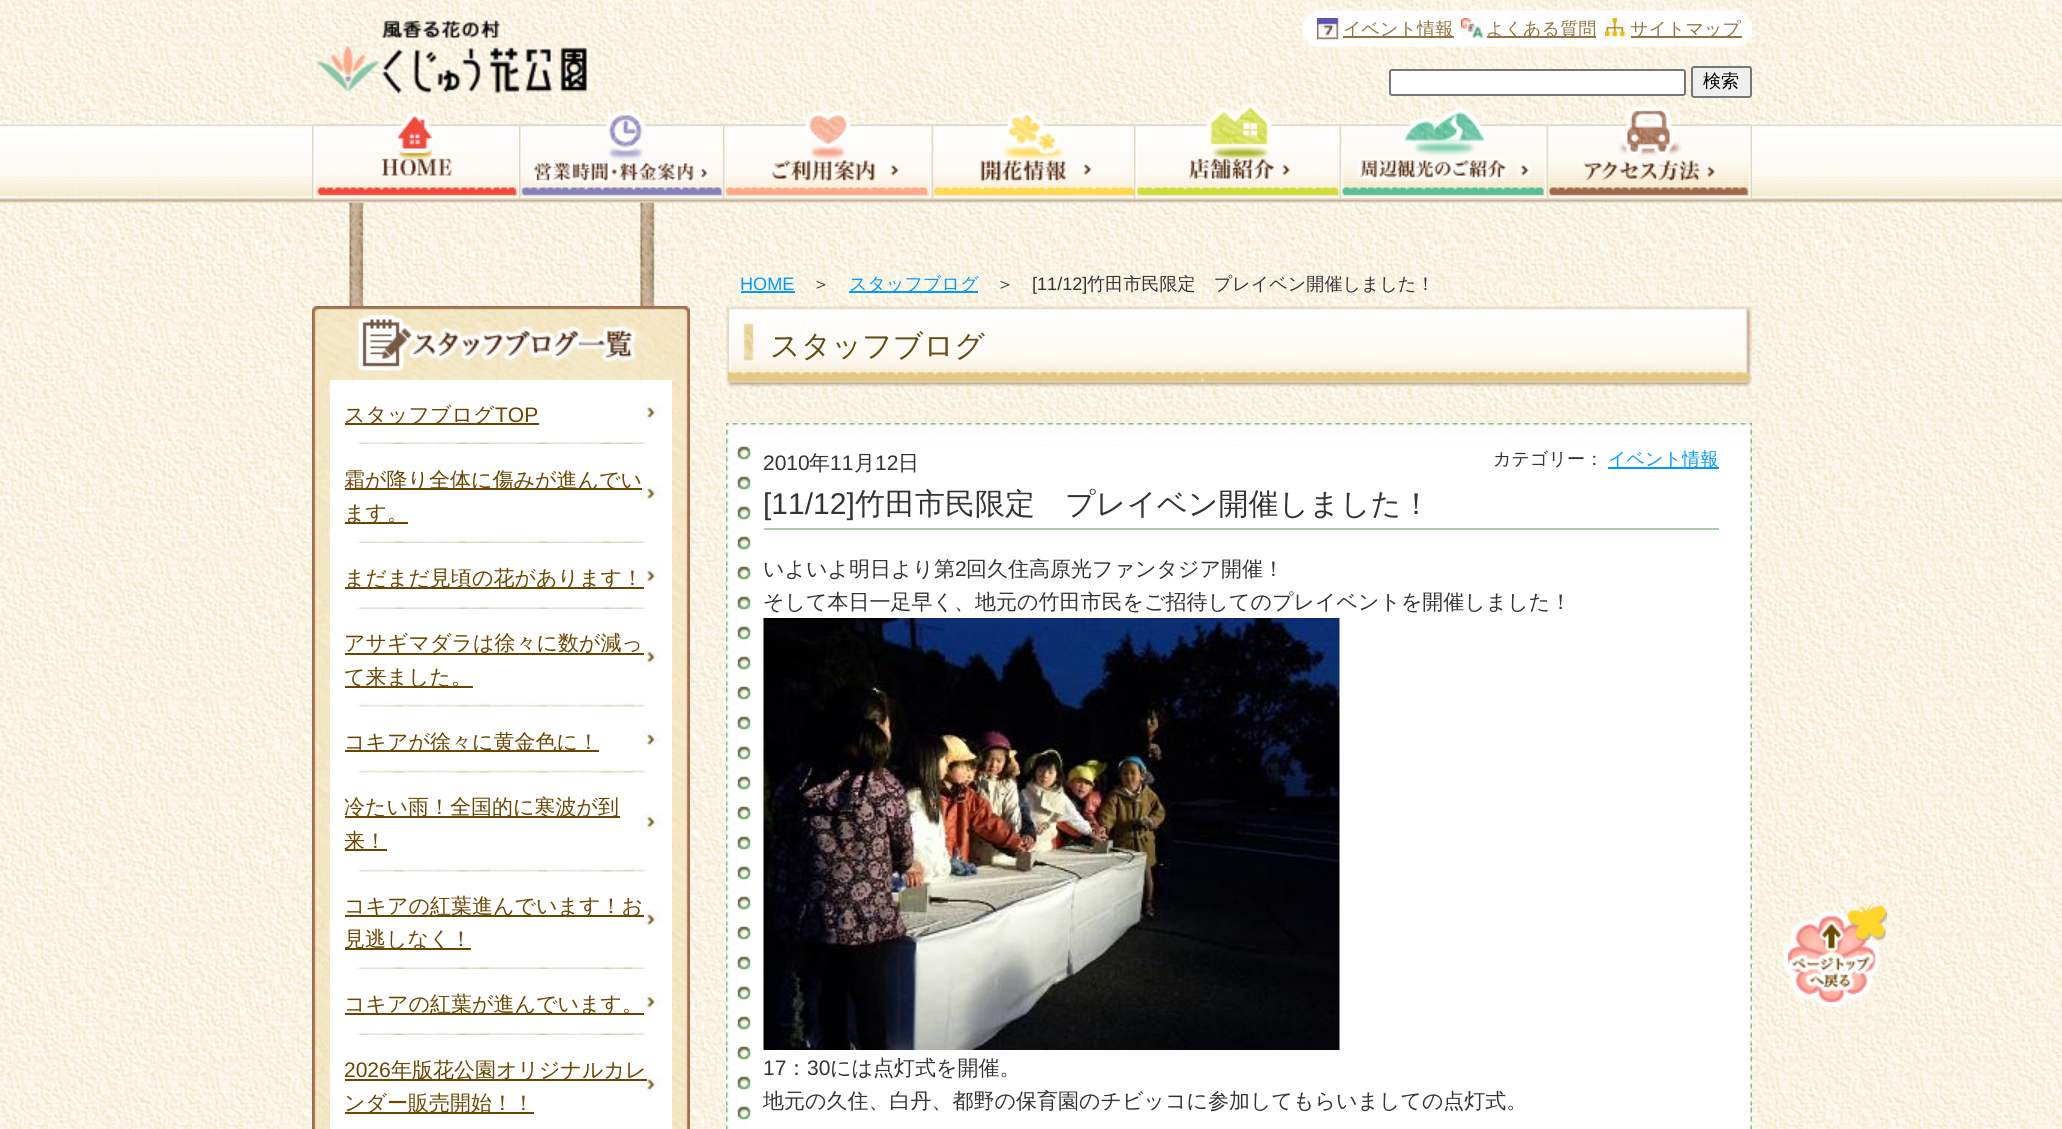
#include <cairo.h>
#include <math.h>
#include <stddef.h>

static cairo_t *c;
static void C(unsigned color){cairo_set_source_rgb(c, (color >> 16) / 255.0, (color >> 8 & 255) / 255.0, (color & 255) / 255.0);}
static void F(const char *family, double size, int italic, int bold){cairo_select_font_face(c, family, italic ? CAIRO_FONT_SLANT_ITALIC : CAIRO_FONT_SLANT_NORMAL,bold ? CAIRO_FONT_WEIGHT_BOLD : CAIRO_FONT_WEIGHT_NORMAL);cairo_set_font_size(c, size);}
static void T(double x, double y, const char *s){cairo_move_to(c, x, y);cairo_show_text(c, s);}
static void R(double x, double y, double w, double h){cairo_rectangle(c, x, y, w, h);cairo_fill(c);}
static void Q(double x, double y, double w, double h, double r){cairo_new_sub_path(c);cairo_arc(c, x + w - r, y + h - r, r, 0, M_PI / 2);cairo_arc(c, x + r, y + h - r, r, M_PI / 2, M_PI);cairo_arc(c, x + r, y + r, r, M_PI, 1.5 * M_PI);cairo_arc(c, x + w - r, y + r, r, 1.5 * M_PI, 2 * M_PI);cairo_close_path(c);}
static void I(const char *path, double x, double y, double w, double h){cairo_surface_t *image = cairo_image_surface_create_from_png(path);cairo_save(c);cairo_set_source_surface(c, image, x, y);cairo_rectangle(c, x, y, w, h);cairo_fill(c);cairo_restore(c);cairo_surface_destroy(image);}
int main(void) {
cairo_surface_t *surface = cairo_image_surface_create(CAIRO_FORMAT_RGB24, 2062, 1129);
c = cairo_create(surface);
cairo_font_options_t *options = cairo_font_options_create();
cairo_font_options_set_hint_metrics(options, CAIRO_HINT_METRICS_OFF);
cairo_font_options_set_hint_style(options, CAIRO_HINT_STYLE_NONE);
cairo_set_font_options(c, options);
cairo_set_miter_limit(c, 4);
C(0xffffff);
cairo_paint(c);
I("1.png",0,0,2062,1129);
I("15.png",349,202,306,104);
I("2.png",0,124,2062,79);
I("3.png",312,0,315,102);
I("4.png",1302,10,450,37);
I("5.png",1317,18,23,23);
C(0x90733f);
R(1343,36,111,2);
F("WenQuanYi Zen Hei Medium",18.1,0,0);
T(1343,35,"イベント情報");
I("6.png",1461,18,23,23);
R(1487,36,109,2);
T(1486,35,"よくある質問");
I("7.png",1605,18,23,23);
R(1631,36,111,2);
T(1630,35,"サイトマップ");
C(0xffffff);
Q(1390,70,295,25,2);
cairo_fill_preserve(c);
C(0x767676);
cairo_stroke(c);
C(0xefefef);
Q(1692,67,59,30,2);
cairo_fill_preserve(c);
C(0x767676);
cairo_stroke(c);
C(0x000000);
T(1703,87,"検索");
I("8.png",312,112,207,88);
I("9.png",519,110,204,90);
I("10.png",723,110,209,90);
I("11.png",931,111,203,89);
I("12.png",1134,103,206,97);
I("13.png",1339,108,208,92);
I("14.png",1546,106,206,94);
I("16.png",312,306,378,66);
I("17.png",331,313,340,59);
I("18.png",312,372,378,757);
I("19.png",312,906,377,223);
C(0xffffff);
R(330,380,342,749);
I("20.png",355,440,290,4);
I("21.png",640,403,23,18);
C(0x6c4600);
R(345,423,194,2);
F("WenQuanYi Zen Hei Medium",21,0,0);
T(344,422,"スタッフブログ");
F("Liberation Sans",21,0,0);
T(495,422,"TOP");
I("20.png",355,539,290,4);
I("21.png",640,484,23,18);
R(345,488,297,2);
F("WenQuanYi Zen Hei Medium",21,0,0);
T(344,487,"霜が降り全体に傷みが進んでい");
R(345,522,63,2);
T(344,520,"ます。");
I("20.png",355,605,290,4);
I("22.png",640,567,24,18);
R(345,587,299,2);
T(344,585,"まだまだ見頃の花があります！");
I("23.png",355,702,290,5);
I("22.png",640,648,24,18);
R(345,653,299,2);
T(344,650,"アサギマダラは徐々に数が減っ");
R(345,686,128,2);
T(344,684,"て来ました。");
I("23.png",355,768,290,5);
I("21.png",640,730,23,18);
R(345,750,254,2);
T(344,749,"コキアが徐々に黄金色に！");
I("23.png",355,867,290,5);
I("22.png",640,813,24,18);
R(345,816,275,2);
T(344,814,"冷たい雨！全国的に寒波が到");
R(345,849,42,2);
T(344,848,"来！");
I("20.png",355,965,290,4);
I("21.png",640,910,23,18);
R(345,915,299,2);
T(344,913,"コキアの紅葉進んでいます！お");
R(345,948,126,2);
T(344,946,"見逃しなく！");
I("20.png",355,1031,290,4);
I("22.png",640,993,24,18);
R(345,1013,299,2);
T(344,1011,"コキアの紅葉が進んでいます。");
I("24.png",399,1128,232,1);
I("21.png",640,1075,23,18);
F("Liberation Sans",21,0,0);
T(344,1077,"2026");
R(345,1079,302,2);
F("WenQuanYi Zen Hei Medium",21,0,0);
T(391,1077,"年版花公園オリジナルカレ");
R(345,1112,189,2);
T(344,1110,"ンダー販売開始！！");
F("Liberation Sans",18.1,0,0);
C(0x0099ff);
T(740,290,"HOME");
R(741,291,54,2);
F("WenQuanYi Zen Hei Medium",18.1,0,0);
C(0x333333);
T(812,290,"＞");
C(0x0099ff);
R(849,291,129,2);
T(849,290,"スタッフブログ");
C(0x333333);
T(996,290,"＞");
F("Liberation Sans",18.1,0,0);
T(1032,290,"[11/12]");
F("WenQuanYi Zen Hei Medium",18.1,0,0);
T(1087,290,"竹田市民限定　プレイベン開催しました！");
I("25.png",726,306,1026,81);
F("WenQuanYi Zen Hei Medium",30,0,0);
C(0x664c10);
T(770,356,"スタッフブログ");
I("26.png",726,423,1026,23);
I("27.png",726,445,1026,684);
F("Liberation Sans",21,0,0);
C(0x333333);
T(763,470,"2010");
F("WenQuanYi Zen Hei Medium",21,0,0);
T(809,470,"年");
F("Liberation Sans",21,0,0);
T(830,470,"11");
F("WenQuanYi Zen Hei Medium",21,0,0);
T(854,470,"月");
F("Liberation Sans",21,0,0);
T(875,470,"12");
F("WenQuanYi Zen Hei Medium",21,0,0);
T(898,470,"日");
F("WenQuanYi Zen Hei Medium",18.1,0,0);
T(1493,465,"カテゴリー：");
C(0x0099ff);
R(1608,467,111,2);
T(1608,465,"イベント情報");
C(0xa9cca7);
R(764,528,955,2);
F("Liberation Sans",30,0,0);
C(0x333333);
T(763,514,"[11/12]");
F("WenQuanYi Zen Hei Medium",30,0,0);
T(855,514,"竹田市民限定　プレイベン開催しました！");
F("WenQuanYi Zen Hei Medium",21,0,0);
T(763,576,"いよいよ明日より第");
F("Liberation Sans",21,0,0);
T(955,576,"2");
F("WenQuanYi Zen Hei Medium",21,0,0);
T(966,576,"回久住高原光ファンタジア開催！");
T(763,609,"そして本日一足早く、地元の竹田市民をご招待してのプレイベントを開催しました！");
I("28.png",763,618,577,432);
F("Liberation Sans",21,0,0);
T(763,1075,"17");
F("WenQuanYi Zen Hei Medium",21,0,0);
T(786,1075,"：");
F("Liberation Sans",21,0,0);
T(807,1075,"30");
F("WenQuanYi Zen Hei Medium",21,0,0);
T(830,1075,"には点灯式を開催。");
T(763,1108,"地元の久住、白丹、都野の保育園のチビッコに参加してもらいましての点灯式。");
I("29.png",1783,903,104,104);
cairo_surface_write_to_png(surface, "o.png");
cairo_font_options_destroy(options);
cairo_destroy(c);
cairo_surface_destroy(surface);
return 0;
}
